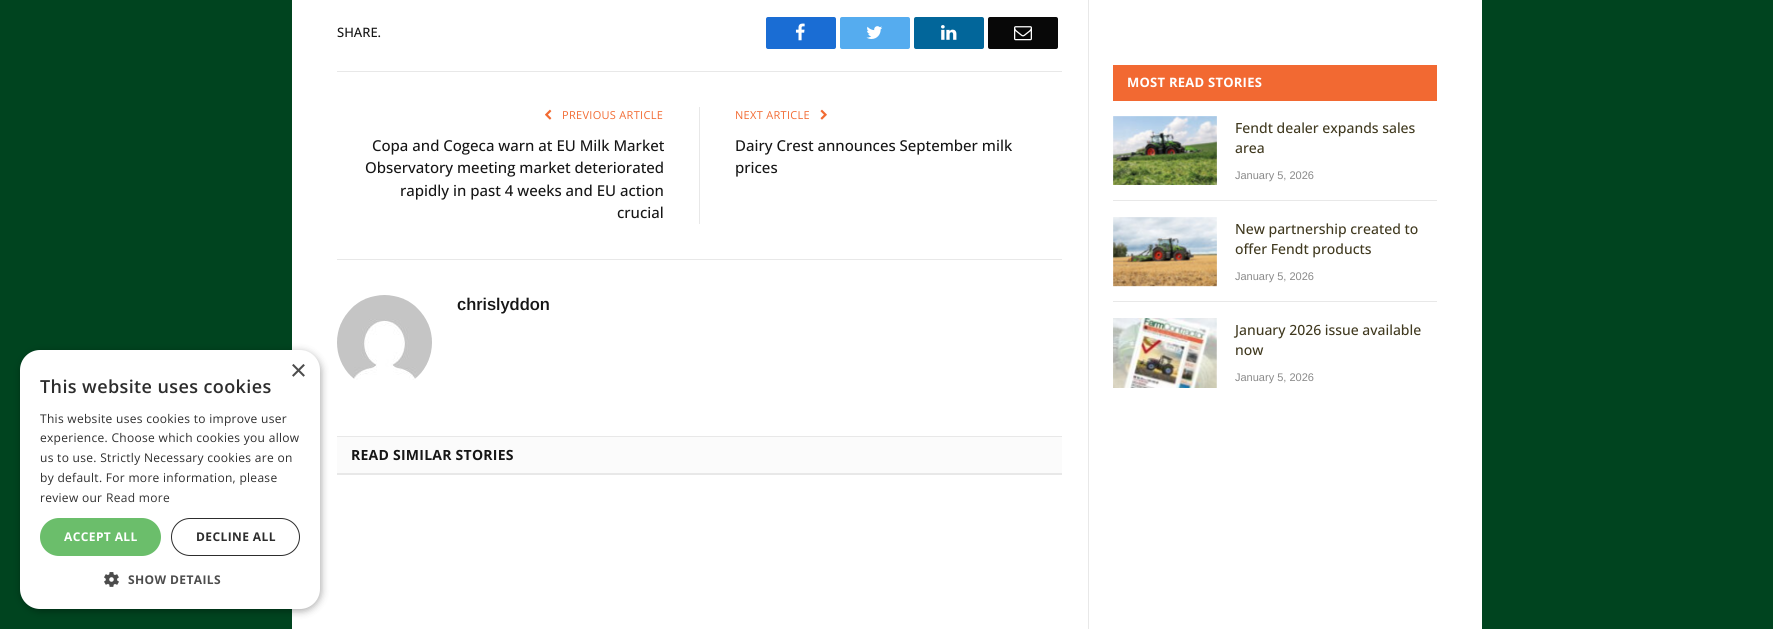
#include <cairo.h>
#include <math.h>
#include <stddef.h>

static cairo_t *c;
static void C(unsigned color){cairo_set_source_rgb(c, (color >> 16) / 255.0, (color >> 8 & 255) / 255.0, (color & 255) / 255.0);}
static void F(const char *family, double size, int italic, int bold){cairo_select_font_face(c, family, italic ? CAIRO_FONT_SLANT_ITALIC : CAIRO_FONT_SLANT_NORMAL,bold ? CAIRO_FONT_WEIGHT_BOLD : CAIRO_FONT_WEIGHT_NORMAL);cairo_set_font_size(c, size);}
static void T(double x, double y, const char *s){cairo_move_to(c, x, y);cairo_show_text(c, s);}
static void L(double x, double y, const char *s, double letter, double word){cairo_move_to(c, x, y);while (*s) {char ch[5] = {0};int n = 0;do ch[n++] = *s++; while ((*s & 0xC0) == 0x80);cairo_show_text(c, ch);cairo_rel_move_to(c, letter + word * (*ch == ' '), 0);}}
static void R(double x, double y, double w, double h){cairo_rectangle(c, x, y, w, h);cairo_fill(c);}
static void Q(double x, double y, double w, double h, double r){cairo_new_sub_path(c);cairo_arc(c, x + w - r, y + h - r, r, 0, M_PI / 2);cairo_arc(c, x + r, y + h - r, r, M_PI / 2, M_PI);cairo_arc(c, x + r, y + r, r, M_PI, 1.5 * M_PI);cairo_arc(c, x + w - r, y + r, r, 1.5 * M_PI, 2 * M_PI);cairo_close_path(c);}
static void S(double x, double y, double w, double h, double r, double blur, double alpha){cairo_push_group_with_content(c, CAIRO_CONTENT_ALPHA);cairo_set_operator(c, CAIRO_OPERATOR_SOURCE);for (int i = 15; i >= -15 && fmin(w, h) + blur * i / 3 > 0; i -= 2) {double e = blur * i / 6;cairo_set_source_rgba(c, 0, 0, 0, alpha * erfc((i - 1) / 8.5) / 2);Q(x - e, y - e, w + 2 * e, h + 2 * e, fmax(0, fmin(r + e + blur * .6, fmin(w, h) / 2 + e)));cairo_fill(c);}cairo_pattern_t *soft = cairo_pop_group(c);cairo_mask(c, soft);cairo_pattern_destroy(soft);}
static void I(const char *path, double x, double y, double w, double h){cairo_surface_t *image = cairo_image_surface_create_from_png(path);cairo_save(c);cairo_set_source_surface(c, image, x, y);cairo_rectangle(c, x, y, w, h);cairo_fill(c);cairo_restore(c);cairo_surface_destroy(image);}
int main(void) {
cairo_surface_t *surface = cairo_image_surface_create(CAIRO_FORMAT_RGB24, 1773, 629);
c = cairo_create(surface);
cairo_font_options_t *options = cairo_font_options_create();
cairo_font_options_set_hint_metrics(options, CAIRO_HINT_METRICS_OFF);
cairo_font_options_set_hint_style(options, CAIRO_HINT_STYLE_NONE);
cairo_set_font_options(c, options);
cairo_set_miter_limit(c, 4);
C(0x00441f);
cairo_paint(c);
C(0xffffff);
R(292,0,1190,629);
C(0x000000);
S(21,352,300,259,20,4,.35);
C(0xffffff);
Q(20,350,300,259,20);
cairo_fill(c);
F("Liberation Sans",29,0,0);
C(0x4d4d4d);
T(290,380,"×");
F("Open Sans SemiBold",18,0,0);
C(0x2d2d2d);
L(40,393,"This website uses cookies",.4,0);
F("Open Sans",12,0,0);
L(40,423,"This website uses cookies to improve user",.3,0);
L(40,442,"experience. Choose which cookies you allow",.3,0);
L(40,462,"us to use. Strictly Necessary cookies are on",.3,0);
L(40,482,"by default. For more information, please",.3,0);
L(40,502,"review our",.3,0);
C(0x333333);
L(106,502,"Read more",.3,0);
C(0x6bbe6b);
Q(40,518,121,38,19);
cairo_fill(c);
F("Open Sans",12,0,1);
C(0xffffff);
L(64,541,"ACCEPT ALL",.4,0);
Q(171.5,518.5,128,37,18.5);
C(0x2d2d2d);
cairo_set_line_width(c,1);
cairo_stroke(c);
L(196,541,"DECLINE ALL",.4,0);
I("1.png",104,572,15,15);
C(0x4d4d4d);
L(128,584,"SHOW DETAILS",.4,0);
F("Open Sans Medium",13,0,0);
C(0x161616);
T(337,37,"SHARE.");
C(0x1a6dd4);
Q(766,17,70,32,2);
cairo_fill(c);
I("2.png",795,23,10,18);
C(0x55acef);
Q(840,17,70,32,2);
cairo_fill(c);
I("3.png",866,26,17,13);
C(0x02669a);
Q(914,17,70,32,2);
cairo_fill(c);
I("4.png",941,25,16,15);
C(0x080808);
Q(988,17,70,32,2);
cairo_fill(c);
I("5.png",1014,26,18,15);
C(0xe8e8e8);
R(337,71,725,1);
I("6.png",545,109,7,11);
F("Open Sans",11,0,0);
C(0xf26b33);
L(562,119,"PREVIOUS ARTICLE",.3,0);
F("Open Sans Medium",15,0,0);
C(0x161616);
T(372,151,"Copa and Cogeca warn at EU Milk Market");
T(365,173,"Observatory meeting market deteriorated");
T(400,196,"rapidly in past 4 weeks and EU action");
T(617,218,"crucial");
C(0xe8e8e8);
R(699,107,1,117);
F("Open Sans",11,0,0);
C(0xf26b33);
L(735,119,"NEXT ARTICLE",.3,0);
I("7.png",820,109,7,11);
F("Open Sans Medium",15,0,0);
C(0x161616);
T(735,151,"Dairy Crest announces September milk");
T(735,173,"prices");
C(0xe8e8e8);
R(337,259,725,1);
I("8.png",337,295,95,85);
F("Arimo SemiBold",17,0,0);
C(0x161616);
T(457,310,"chrislyddon");
C(0xfbfbfb);
R(337,437,725,36);
C(0xe8e8e8);
R(337,436,725,1);
R(337,473,725,2);
F("Open Sans",14,0,1);
C(0x161616);
L(351,460,"READ SIMILAR STORIES",.25,0);
C(0xe8e8e8);
R(1088,0,1,629);
C(0xf26932);
R(1113,65,324,36);
F("Open Sans",13,0,1);
C(0xffffff);
L(1127,87,"MOST READ STORIES",.25,0);
I("9.png",1113,116,104,69);
F("Open Sans Medium",14,0,0);
C(0x40391f);
T(1235,133,"Fendt dealer expands sales");
T(1235,153,"area");
F("Arimo",11,0,0);
C(0x8a8a8a);
T(1235,179,"January 5, 2026");
C(0xe8e8e8);
R(1113,200,324,1);
I("10.png",1113,217,104,70);
F("Open Sans Medium",14,0,0);
C(0x40391f);
T(1235,234,"New partnership created to");
T(1235,254,"offer Fendt products");
F("Arimo",11,0,0);
C(0x8a8a8a);
T(1235,280,"January 5, 2026");
C(0xe8e8e8);
R(1113,301,324,1);
I("11.png",1113,318,104,70);
F("Open Sans Medium",14,0,0);
C(0x40391f);
T(1235,335,"January 2026 issue available");
T(1235,355,"now");
F("Arimo",11,0,0);
C(0x8a8a8a);
T(1235,381,"January 5, 2026");
cairo_surface_write_to_png(surface, "o.png");
cairo_font_options_destroy(options);
cairo_destroy(c);
cairo_surface_destroy(surface);
return 0;
}
